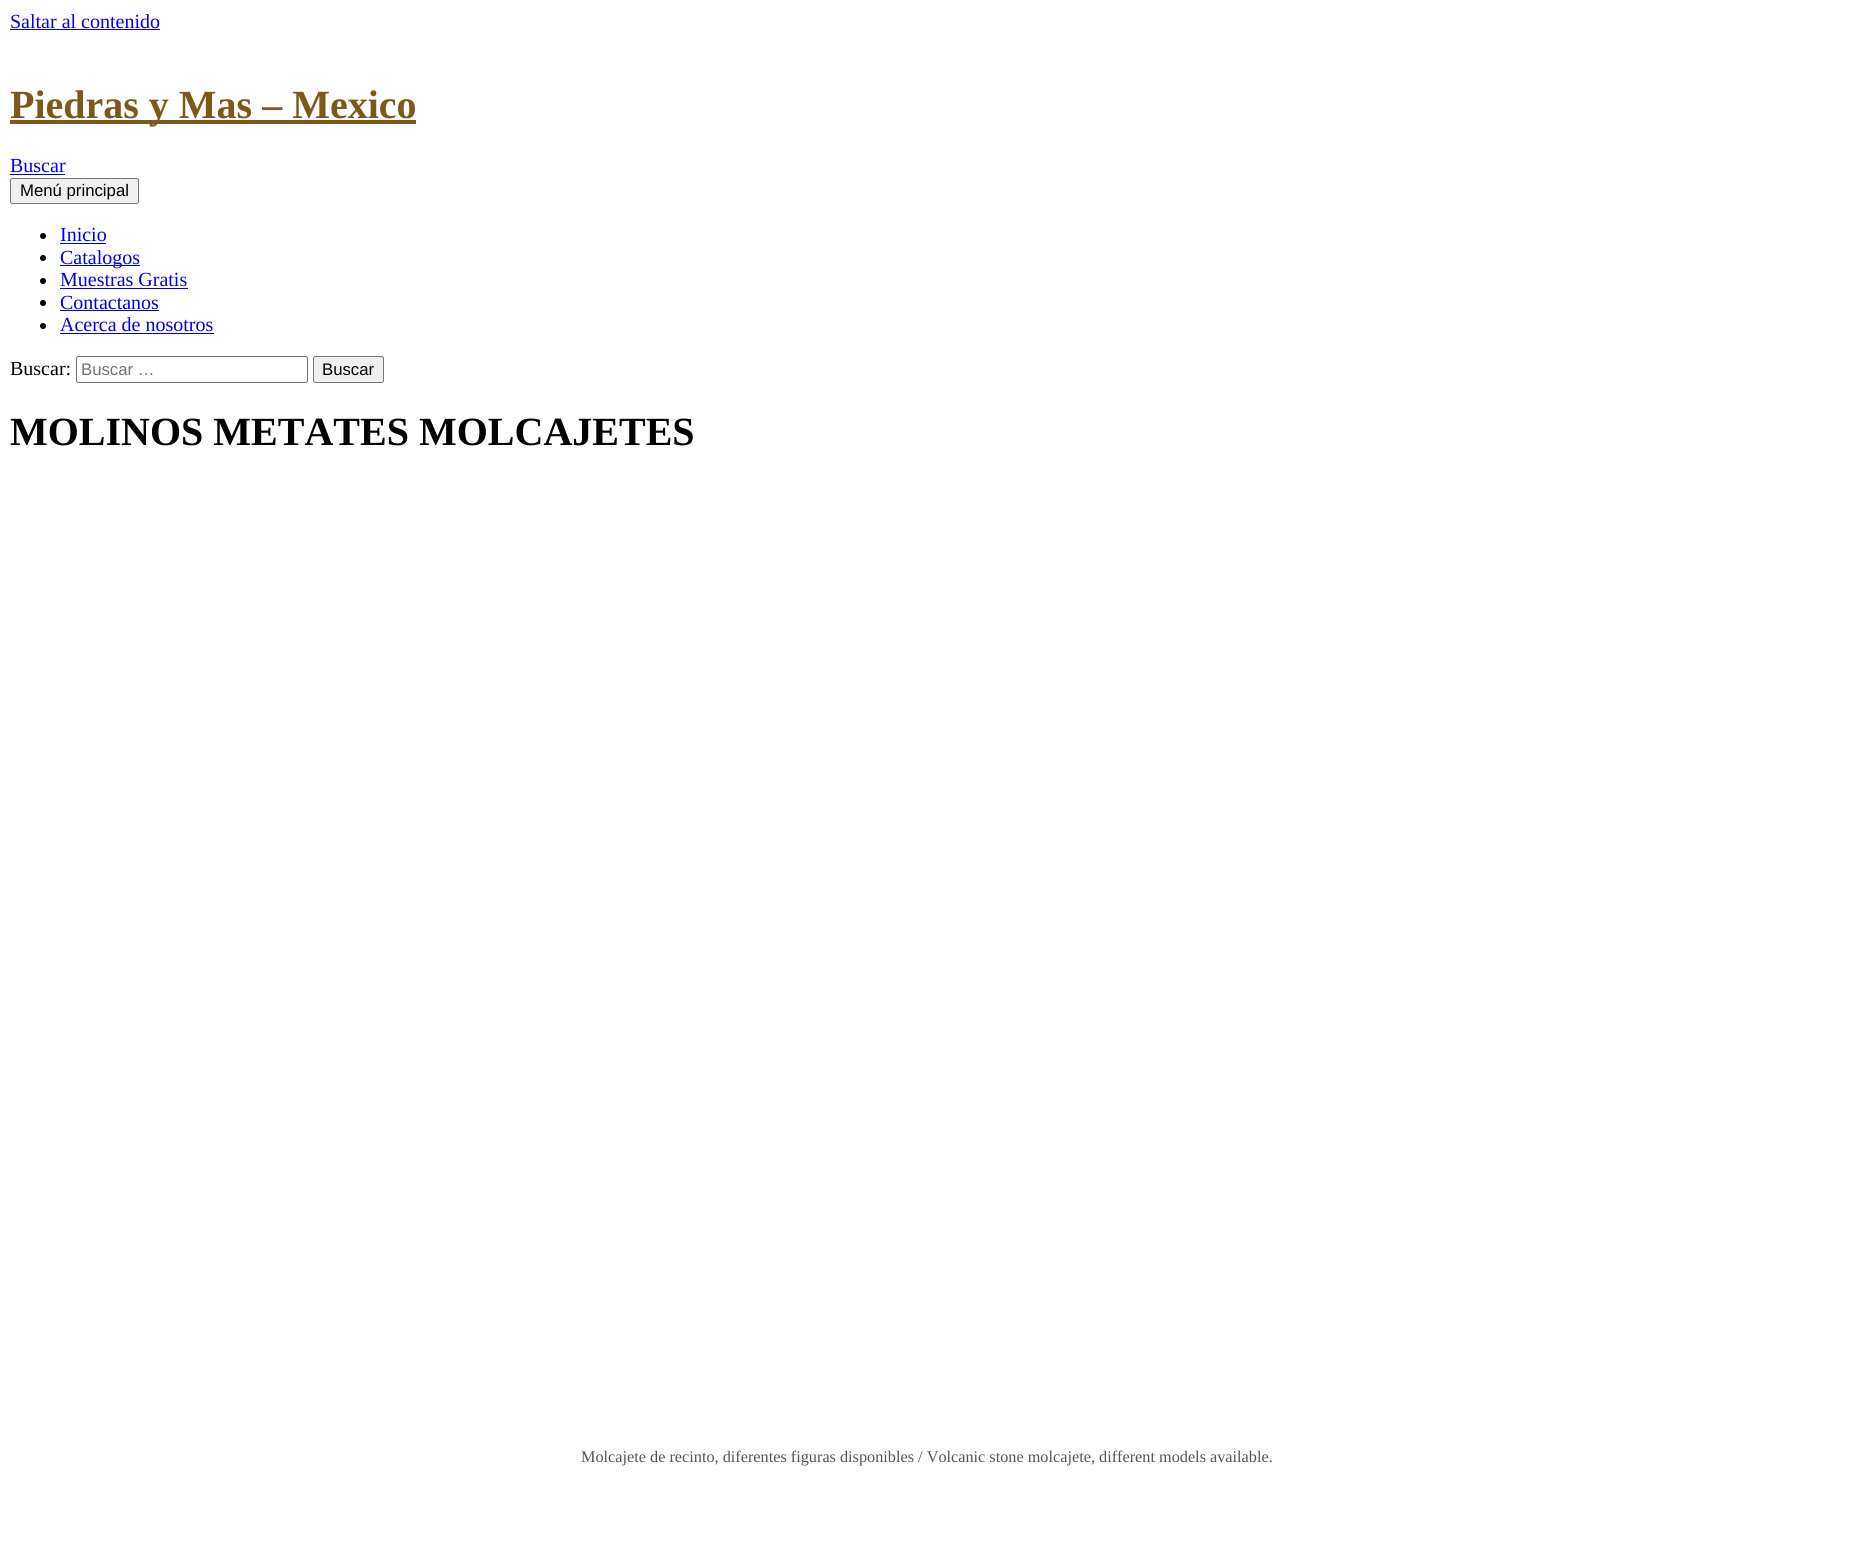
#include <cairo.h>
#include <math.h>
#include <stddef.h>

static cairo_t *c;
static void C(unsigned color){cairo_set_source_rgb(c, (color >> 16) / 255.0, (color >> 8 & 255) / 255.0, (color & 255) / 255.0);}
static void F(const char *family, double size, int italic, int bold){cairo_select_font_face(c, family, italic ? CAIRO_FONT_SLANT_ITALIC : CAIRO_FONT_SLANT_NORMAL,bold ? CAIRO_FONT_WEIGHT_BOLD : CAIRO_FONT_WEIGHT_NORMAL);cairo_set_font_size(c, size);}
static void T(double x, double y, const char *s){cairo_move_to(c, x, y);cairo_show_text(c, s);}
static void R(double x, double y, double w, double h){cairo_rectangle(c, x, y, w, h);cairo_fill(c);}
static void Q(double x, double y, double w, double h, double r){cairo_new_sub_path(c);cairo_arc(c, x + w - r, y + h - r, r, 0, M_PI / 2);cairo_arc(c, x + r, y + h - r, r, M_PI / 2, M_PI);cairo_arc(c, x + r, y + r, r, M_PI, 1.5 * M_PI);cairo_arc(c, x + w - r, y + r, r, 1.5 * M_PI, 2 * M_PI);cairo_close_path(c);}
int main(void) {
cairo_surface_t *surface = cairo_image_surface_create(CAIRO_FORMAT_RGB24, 1853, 1562);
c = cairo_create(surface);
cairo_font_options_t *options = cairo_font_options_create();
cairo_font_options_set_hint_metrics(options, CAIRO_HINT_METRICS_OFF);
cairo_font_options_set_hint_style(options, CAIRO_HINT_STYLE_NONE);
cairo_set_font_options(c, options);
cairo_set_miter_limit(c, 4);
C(0xffffff);
cairo_paint(c);
F("Liberation Serif",20,0,0);
C(0x0000ee);
T(10,28,"Saltar al contenido");
R(10,29,150,1);
C(0x7c591b);
R(10,120,406,4);
F("Liberation Serif",40,0,1);
T(10,118,"Piedras y Mas – Mexico");
F("Liberation Serif",20,0,0);
C(0x0000ee);
T(10,172,"Buscar");
R(10,174,55,1);
C(0xefefef);
Q(10.5,178.5,128,25,2);
cairo_fill_preserve(c);
C(0x767676);
cairo_set_line_width(c,1);
cairo_stroke(c);
F("Liberation Sans",16.75,0,0);
C(0x000000);
T(20,196,"Menú principal");
cairo_new_path(c);
cairo_arc(c,43,236,3,0,2 * M_PI);
cairo_fill(c);
F("Liberation Serif",20,0,0);
C(0x0000ee);
T(60,241,"Inicio");
R(60,243,46,1);
C(0x000000);
cairo_new_path(c);
cairo_arc(c,43,258,3,0,2 * M_PI);
cairo_fill(c);
C(0x0000ee);
R(60,265,80,1);
T(60,264,"Catalogos");
C(0x000000);
cairo_new_path(c);
cairo_arc(c,43,281,3,0,2 * M_PI);
cairo_fill(c);
C(0x0000ee);
T(60,286,"Muestras Gratis");
R(60,288,128,1);
C(0x000000);
cairo_new_path(c);
cairo_arc(c,43,303,3,0,2 * M_PI);
cairo_fill(c);
C(0x0000ee);
T(60,309,"Contactanos");
R(60,310,99,1);
C(0x000000);
cairo_new_path(c);
cairo_arc(c,43,326,3,0,2 * M_PI);
cairo_fill(c);
C(0x0000ee);
T(60,331,"Acerca de nosotros");
R(60,333,154,1);
C(0x000000);
T(10,375,"Buscar:");
Q(76.5,356.5,231,26,2);
C(0x767676);
cairo_stroke(c);
F("Liberation Sans",16.75,0,0);
C(0x757575);
T(81,375,"Buscar …");
C(0xefefef);
Q(313.5,356.5,70,26,2);
cairo_fill_preserve(c);
C(0x767676);
cairo_stroke(c);
C(0x000000);
T(322,375,"Buscar");
F("Liberation Serif",40,0,1);
T(10,445,"MOLINOS METATES MOLCAJETES");
F("Liberation Serif",16.25,0,0);
C(0x555555);
T(581,1462,"Molcajete de recinto, diferentes figuras disponibles / Volcanic stone molcajete, different models available.");
cairo_surface_write_to_png(surface, "o.png");
cairo_font_options_destroy(options);
cairo_destroy(c);
cairo_surface_destroy(surface);
return 0;
}
